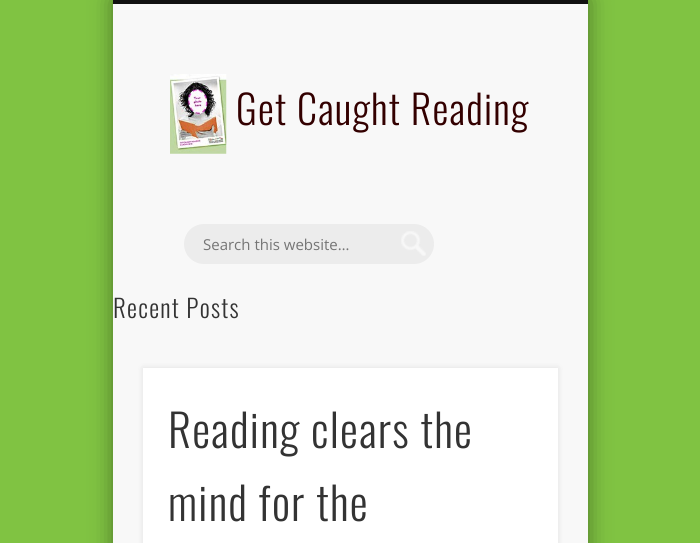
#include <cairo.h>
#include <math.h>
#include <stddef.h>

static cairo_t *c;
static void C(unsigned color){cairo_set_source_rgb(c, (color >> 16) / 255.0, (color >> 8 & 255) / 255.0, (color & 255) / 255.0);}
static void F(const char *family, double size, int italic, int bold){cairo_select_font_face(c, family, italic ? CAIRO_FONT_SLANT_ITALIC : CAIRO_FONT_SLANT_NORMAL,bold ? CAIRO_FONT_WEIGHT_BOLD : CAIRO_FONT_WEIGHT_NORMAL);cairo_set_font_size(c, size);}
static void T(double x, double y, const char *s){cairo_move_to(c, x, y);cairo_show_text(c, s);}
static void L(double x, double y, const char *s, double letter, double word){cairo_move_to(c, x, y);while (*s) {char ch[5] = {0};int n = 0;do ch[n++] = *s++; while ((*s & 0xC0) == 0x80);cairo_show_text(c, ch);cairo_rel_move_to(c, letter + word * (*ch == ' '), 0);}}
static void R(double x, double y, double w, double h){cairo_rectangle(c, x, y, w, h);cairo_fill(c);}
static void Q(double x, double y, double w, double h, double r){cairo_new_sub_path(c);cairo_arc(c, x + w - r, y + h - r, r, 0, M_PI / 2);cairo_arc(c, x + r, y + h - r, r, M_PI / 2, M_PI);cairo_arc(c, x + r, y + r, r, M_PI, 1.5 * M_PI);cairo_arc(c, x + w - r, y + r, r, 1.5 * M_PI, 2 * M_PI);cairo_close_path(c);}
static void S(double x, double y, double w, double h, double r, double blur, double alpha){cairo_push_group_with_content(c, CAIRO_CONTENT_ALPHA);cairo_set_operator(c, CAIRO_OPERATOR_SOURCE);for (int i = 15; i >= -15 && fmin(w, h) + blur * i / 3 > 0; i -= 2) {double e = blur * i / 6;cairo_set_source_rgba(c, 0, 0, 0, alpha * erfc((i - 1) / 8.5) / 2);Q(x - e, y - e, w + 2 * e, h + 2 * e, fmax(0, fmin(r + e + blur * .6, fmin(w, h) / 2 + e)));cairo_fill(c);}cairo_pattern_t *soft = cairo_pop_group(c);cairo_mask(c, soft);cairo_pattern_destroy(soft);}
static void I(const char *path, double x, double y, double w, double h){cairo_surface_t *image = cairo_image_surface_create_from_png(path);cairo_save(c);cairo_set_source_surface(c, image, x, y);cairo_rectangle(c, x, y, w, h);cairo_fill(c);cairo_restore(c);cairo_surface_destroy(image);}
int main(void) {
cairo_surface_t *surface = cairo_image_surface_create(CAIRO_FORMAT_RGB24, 700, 543);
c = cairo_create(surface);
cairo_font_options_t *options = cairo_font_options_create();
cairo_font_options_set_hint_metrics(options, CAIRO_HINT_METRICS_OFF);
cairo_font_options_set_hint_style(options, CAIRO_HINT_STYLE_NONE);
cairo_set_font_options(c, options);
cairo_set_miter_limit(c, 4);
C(0x80c342);
cairo_paint(c);
C(0x000000);
S(113,0,475,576,0,11,.4);
C(0xf8f8f8);
R(113,4,475,539);
C(0x111111);
R(113,0,475,4);
I("1.png",170,74,57,80);
F("Oswald Light",40,0,0);
C(0x330000);
L(236,125,"Get Caught Reading",1.25,0);
C(0xececec);
Q(184,224,250,40,20);
cairo_fill(c);
I("2.png",401,231,25,25);
F("Open Sans",15,0,0);
C(0x757575);
T(203,250,"Search this website…");
F("Oswald Light",25,0,0);
C(0x333333);
L(113,318,"Recent Posts",1.25,0);
C(0x000000);
S(143,368,415,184,0,3,.1);
C(0xffffff);
R(143,368,415,175);
F("Oswald Light",45,0,0);
C(0x333333);
L(168,448,"Reading clears the",1.25,0);
L(168,521,"mind for the",1.25,0);
cairo_surface_write_to_png(surface, "o.png");
cairo_font_options_destroy(options);
cairo_destroy(c);
cairo_surface_destroy(surface);
return 0;
}
